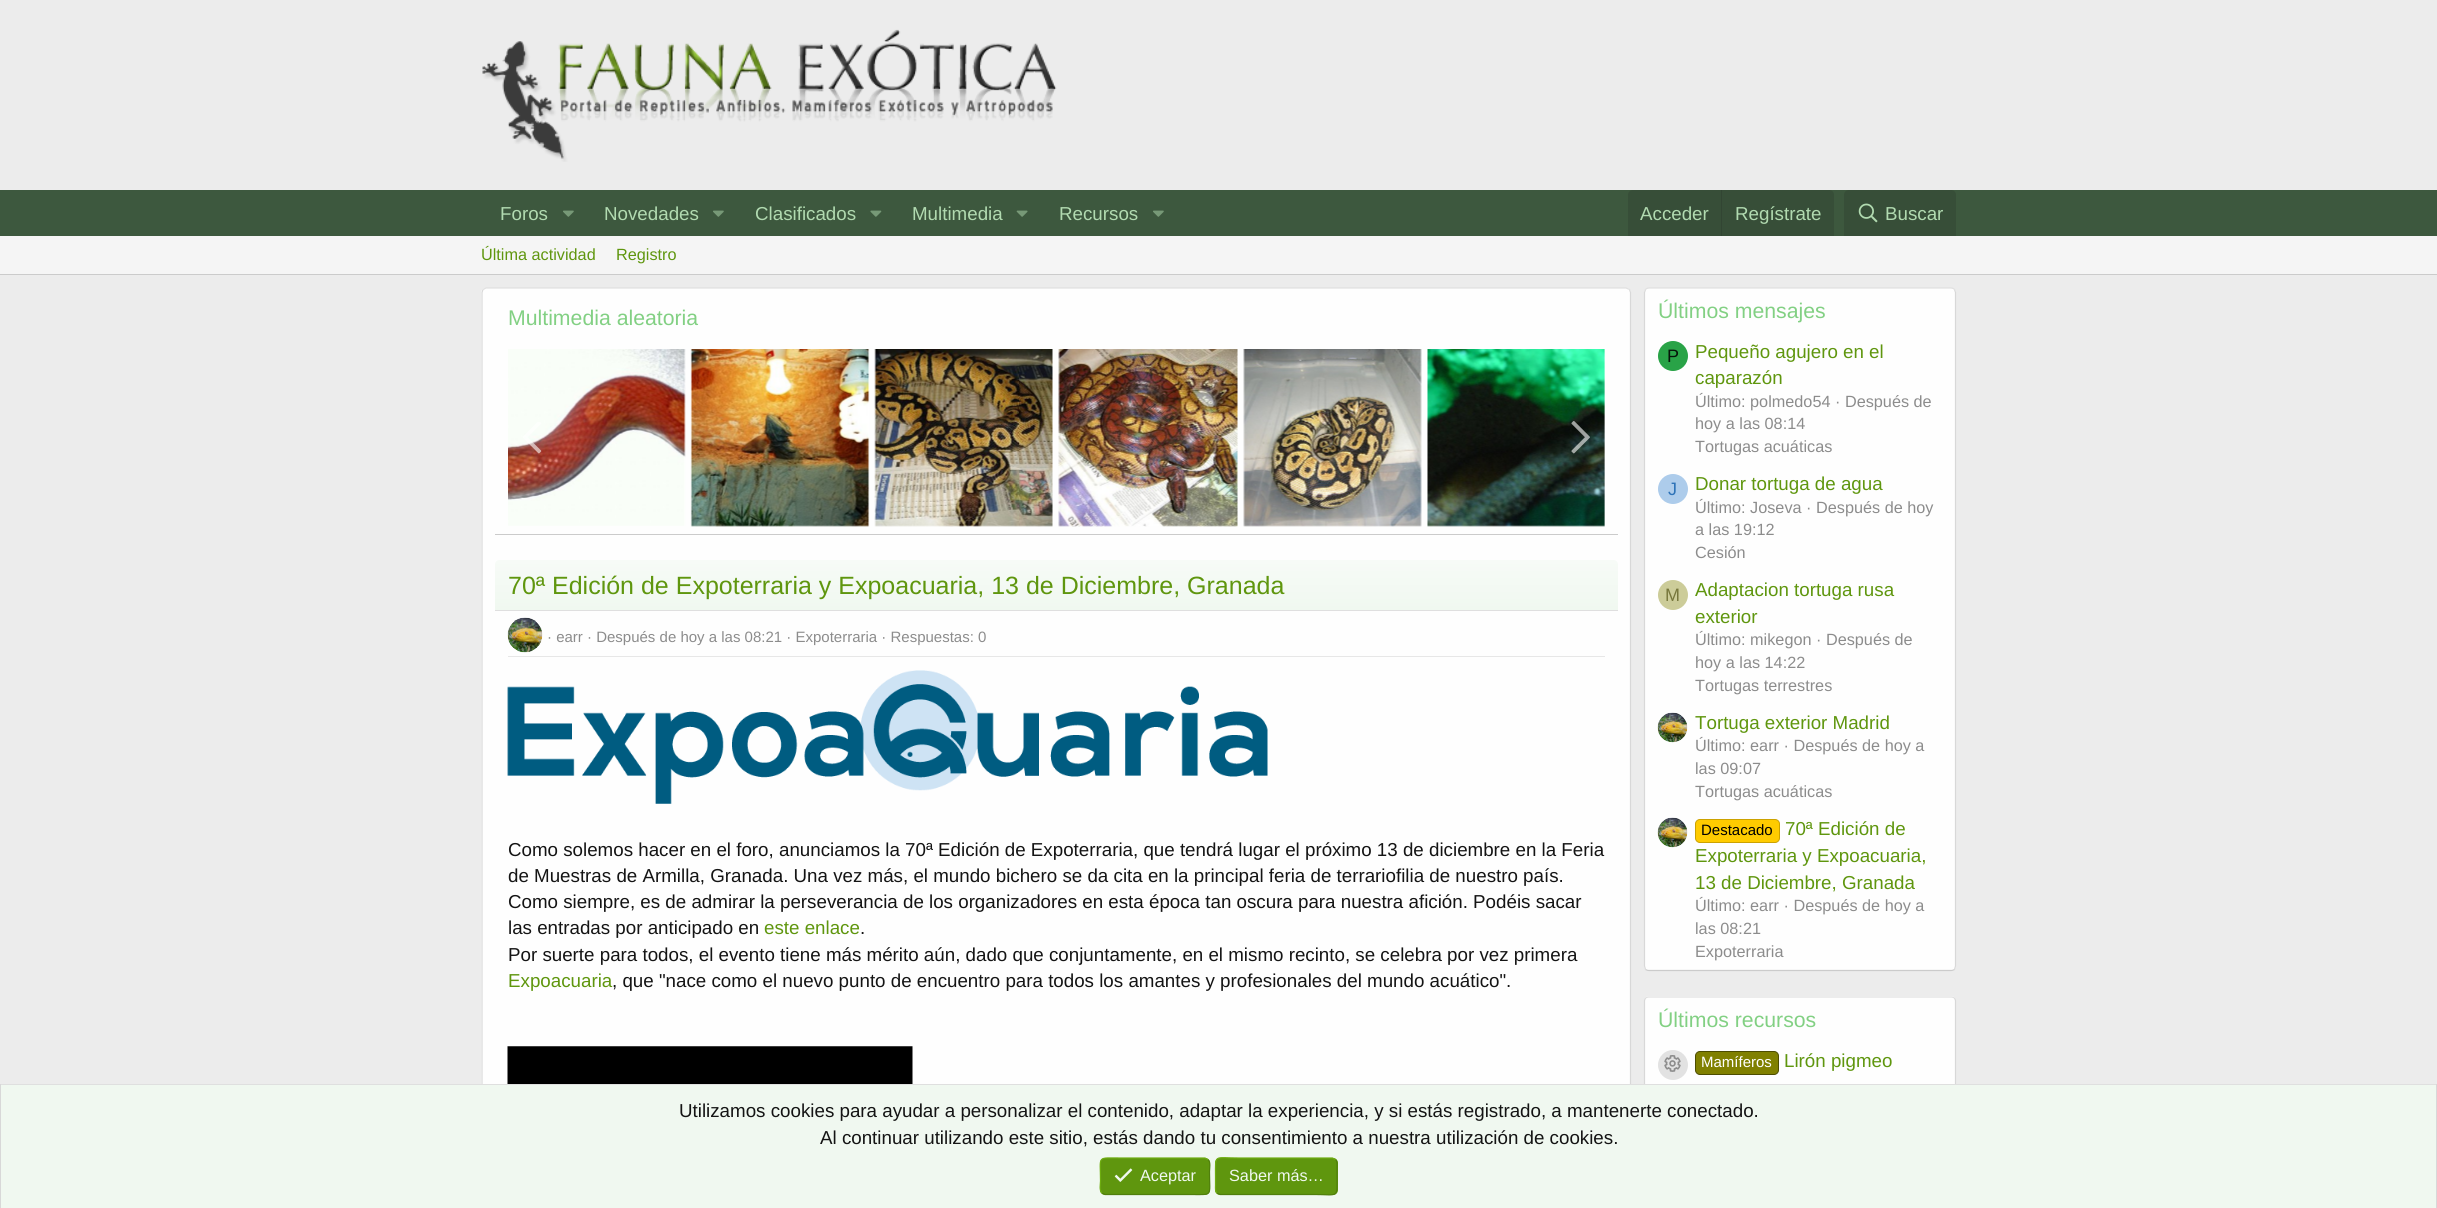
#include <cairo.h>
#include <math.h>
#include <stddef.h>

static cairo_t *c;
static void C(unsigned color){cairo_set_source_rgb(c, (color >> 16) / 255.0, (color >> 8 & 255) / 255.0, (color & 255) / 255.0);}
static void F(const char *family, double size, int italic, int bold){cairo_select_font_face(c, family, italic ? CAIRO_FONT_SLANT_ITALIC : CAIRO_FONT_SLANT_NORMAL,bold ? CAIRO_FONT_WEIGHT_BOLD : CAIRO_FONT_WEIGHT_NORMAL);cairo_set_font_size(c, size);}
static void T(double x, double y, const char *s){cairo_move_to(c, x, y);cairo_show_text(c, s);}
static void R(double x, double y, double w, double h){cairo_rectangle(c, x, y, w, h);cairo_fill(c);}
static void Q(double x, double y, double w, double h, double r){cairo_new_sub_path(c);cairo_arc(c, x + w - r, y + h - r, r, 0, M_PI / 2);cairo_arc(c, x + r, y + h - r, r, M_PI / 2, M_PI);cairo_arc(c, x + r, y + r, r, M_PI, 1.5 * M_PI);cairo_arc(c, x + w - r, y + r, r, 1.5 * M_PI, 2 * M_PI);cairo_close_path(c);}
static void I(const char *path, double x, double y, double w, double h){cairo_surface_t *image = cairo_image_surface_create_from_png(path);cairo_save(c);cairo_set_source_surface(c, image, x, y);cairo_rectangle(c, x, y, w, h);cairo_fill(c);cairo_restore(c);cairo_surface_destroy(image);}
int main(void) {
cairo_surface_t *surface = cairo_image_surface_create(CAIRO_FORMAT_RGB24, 2437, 1208);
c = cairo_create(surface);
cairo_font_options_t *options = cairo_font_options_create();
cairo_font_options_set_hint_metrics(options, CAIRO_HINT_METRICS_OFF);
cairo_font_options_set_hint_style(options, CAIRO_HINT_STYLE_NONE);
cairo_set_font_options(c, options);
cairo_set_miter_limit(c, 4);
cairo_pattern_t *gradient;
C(0xececec);
cairo_paint(c);
I("1.png",482,29,575,133);
C(0x3d583e);
R(0,190,2437,46);
F("Liberation Sans",18.75,0,0);
C(0xb1dab0);
T(500,220,"Foros");
I("2.png",563,210,11,7);
T(604,220,"Novedades");
I("2.png",713,210,11,7);
T(755,220,"Clasificados");
I("3.png",870,210,12,7);
T(912,220,"Multimedia");
I("4.png",1016,210,12,7);
T(1059,220,"Recursos");
I("2.png",1153,210,11,7);
C(0x374e38);
cairo_new_path(c);
cairo_move_to(c,1633,190);
cairo_line_to(c,1829,190);
cairo_curve_to(c,1832,190,1834,192,1834,195);
cairo_line_to(c,1834,236);
cairo_line_to(c,1628,236);
cairo_line_to(c,1628,195);
cairo_curve_to(c,1628,192,1630,190,1633,190);
cairo_close_path(c);
cairo_fill(c);
C(0xb1dab0);
T(1640,220,"Acceder");
C(0x324533);
R(1721,190,1,46);
C(0xb1dab0);
T(1735,220,"Regístrate");
C(0x374e38);
cairo_new_path(c);
cairo_move_to(c,1849,190);
cairo_line_to(c,1951,190);
cairo_curve_to(c,1954,190,1956,192,1956,195);
cairo_line_to(c,1956,236);
cairo_line_to(c,1844,236);
cairo_line_to(c,1844,195);
cairo_curve_to(c,1844,192,1846,190,1849,190);
cairo_close_path(c);
cairo_fill(c);
I("5.png",1858,203,20,20);
C(0xb1dab0);
T(1885,220,"Buscar");
C(0xf5f5f5);
R(0,236,2437,38);
C(0xcbcbcb);
R(0,274,2437,1);
F("Liberation Sans",16.25,0,0);
C(0x5f960e);
T(481,260,"Última actividad");
T(616,260,"Registro");
C(0xfefefe);
Q(481,288,1150,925,5);
cairo_fill(c);
cairo_new_path(c);
cairo_move_to(c,483,289.5);
cairo_line_to(c,486,288);
cairo_line_to(c,1626,288);
cairo_line_to(c,1629.5,289.5);
C(0xdfdfdf);
cairo_set_line_width(c,1.2);
cairo_stroke(c);
cairo_new_path(c);
cairo_move_to(c,1629.5,289.5);
cairo_line_to(c,1630.5,292.5);
cairo_line_to(c,1630.5,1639);
cairo_line_to(c,1629.5,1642);
C(0xd8d8d8);
cairo_stroke(c);
cairo_new_path(c);
cairo_move_to(c,483,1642);
cairo_line_to(c,482,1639);
cairo_line_to(c,482,292.5);
cairo_line_to(c,483,289.5);
cairo_stroke(c);
C(0xcbcbcb);
R(495,534,1123,1);
F("Liberation Sans",21.25,0,0);
C(0x82d083);
T(508,325,"Multimedia aleatoria");
I("6.png",508,349,178,177);
I("7.png",690,349,180,178);
I("8.png",874,349,179,178);
I("9.png",1058,349,180,178);
I("10.png",1243,349,179,178);
I("11.png",1427,349,178,178);
I("12.png",523,422,19,32);
I("13.png",1571,421,19,33);
gradient = cairo_pattern_create_linear(1056,610,1056,560);
cairo_pattern_add_color_stop_rgba(gradient,0,0.941,0.973,0.941,1);
cairo_pattern_add_color_stop_rgba(gradient,1,0.969,0.984,0.969,1);
cairo_set_source(c,gradient);
cairo_pattern_destroy(gradient);
cairo_new_path(c);
cairo_move_to(c,499,560);
cairo_line_to(c,1614,560);
cairo_curve_to(c,1616,560,1618,562,1618,564);
cairo_line_to(c,1618,610);
cairo_line_to(c,495,610);
cairo_line_to(c,495,564);
cairo_curve_to(c,495,562,497,560,499,560);
cairo_close_path(c);
cairo_fill(c);
C(0xdfdfdf);
R(495,610,1123,1);
F("Liberation Sans",25,0,0);
C(0x5f960e);
T(508,594,"70ª Edición de Expoterraria y Expoacuaria, 13 de Diciembre, Granada");
C(0xe7e7e7);
R(508,656,1097,1);
I("14.png",507,617,36,36);
F("Liberation Sans",15,0,0);
C(0x8c8c8c);
T(547,642,"· earr · Después de hoy a las 08:21 · Expoterraria · Respuestas: 0");
I("15.png",507,670,761,134);
F("Liberation Sans",18.75,0,0);
C(0x141414);
T(508,856,"Como solemos hacer en el foro, anunciamos la 70ª Edición de Expoterraria, que tendrá lugar el próximo 13 de diciembre en la Feria");
T(508,882,"de Muestras de Armilla, Granada. Una vez más, el mundo bichero se da cita en la principal feria de terrariofilia de nuestro país.");
T(508,908,"Como siempre, es de admirar la perseverancia de los organizadores en esta época tan oscura para nuestra afición. Podéis sacar");
T(508,934,"las entradas por anticipado en");
C(0x5f960e);
T(764,934,"este enlace");
C(0x141414);
T(860,934,".");
T(508,961,"Por suerte para todos, el evento tiene más mérito aún, dado que conjuntamente, en el mismo recinto, se celebra por vez primera");
C(0x5f960e);
T(508,987,"Expoacuaria");
C(0x141414);
T(612,987,", que \"nace como el nuevo punto de encuentro para todos los amantes y profesionales del mundo acuático\".");
I("16.png",507,1046,406,38);
C(0xfefefe);
Q(1644,288,312,683,5);
cairo_fill(c);
cairo_new_path(c);
cairo_move_to(c,1645.5,289.5);
cairo_curve_to(c,1646.5,288.5,1647.5,288,1649,288);
cairo_line_to(c,1951,288);
cairo_curve_to(c,1952.5,288,1953.5,288.5,1954.5,289.5);
C(0xdfdfdf);
cairo_stroke(c);
cairo_new_path(c);
cairo_move_to(c,1954.5,289.5);
cairo_line_to(c,1955.5,292.5);
cairo_line_to(c,1955.5,966);
cairo_line_to(c,1954.5,969.5);
C(0xd8d8d8);
cairo_stroke(c);
cairo_new_path(c);
cairo_move_to(c,1954.5,969.5);
cairo_curve_to(c,1953.5,970,1952.5,970.5,1951,970.5);
cairo_line_to(c,1649,970.5);
cairo_curve_to(c,1647.5,970.5,1646.5,970,1645.5,969.5);
C(0xcbcbcb);
cairo_stroke(c);
cairo_new_path(c);
cairo_move_to(c,1645.5,969.5);
cairo_line_to(c,1644.5,966);
cairo_line_to(c,1644.5,292.5);
cairo_line_to(c,1645.5,289.5);
C(0xd8d8d8);
cairo_stroke(c);
F("Liberation Sans",21.25,0,0);
C(0x82d083);
T(1658,318,"Últimos mensajes");
C(0x29a347);
cairo_new_path(c);
cairo_arc(c,1673,356,15,0,2 * M_PI);
cairo_fill(c);
F("Liberation Sans",18,0,0);
C(0x051409);
T(1667,362,"P");
F("Liberation Sans",18.75,0,0);
C(0x5f960e);
T(1695,358,"Pequeño agujero en el");
T(1695,384,"caparazón");
F("Liberation Sans",16.25,0,0);
C(0x8c8c8c);
T(1695,407,"Último: polmedo54 · Después de");
T(1695,429,"hoy a las 08:14");
T(1695,452,"Tortugas acuáticas");
C(0xadcceb);
cairo_new_path(c);
cairo_arc(c,1673,489,15,0,2 * M_PI);
cairo_fill(c);
F("Liberation Sans",18,0,0);
C(0x2e73b8);
T(1668,495,"J");
F("Liberation Sans",18.75,0,0);
C(0x5f960e);
T(1695,490,"Donar tortuga de agua");
F("Liberation Sans",16.25,0,0);
C(0x8c8c8c);
T(1695,513,"Último: Joseva · Después de hoy");
T(1695,535,"a las 19:12");
T(1695,558,"Cesión");
C(0xcccc99);
cairo_new_path(c);
cairo_arc(c,1673,595,15,0,2 * M_PI);
cairo_fill(c);
F("Liberation Sans",18,0,0);
C(0x77773c);
T(1665,601,"M");
F("Liberation Sans",18.75,0,0);
C(0x5f960e);
T(1695,596,"Adaptacion tortuga rusa");
T(1695,623,"exterior");
F("Liberation Sans",16.25,0,0);
C(0x8c8c8c);
T(1695,645,"Último: mikegon · Después de");
T(1695,668,"hoy a las 14:22");
T(1695,691,"Tortugas terrestres");
I("17.png",1657,712,31,31);
F("Liberation Sans",18.75,0,0);
C(0x5f960e);
T(1695,729,"Tortuga exterior Madrid");
F("Liberation Sans",16.25,0,0);
C(0x8c8c8c);
T(1695,751,"Último: earr · Después de hoy a");
T(1695,774,"las 09:07");
T(1695,797,"Tortugas acuáticas");
I("17.png",1657,817,31,31);
C(0xffcb00);
Q(1695.5,819.5,84,23,4.5);
cairo_fill_preserve(c);
C(0xcca200);
cairo_set_line_width(c,1);
cairo_stroke(c);
F("Liberation Sans",15,0,0);
C(0x000000);
T(1701,835,"Destacado");
F("Liberation Sans",18.75,0,0);
C(0x5f960e);
T(1785,835,"70ª Edición de");
T(1695,862,"Expoterraria y Expoacuaria,");
T(1695,889,"13 de Diciembre, Granada");
F("Liberation Sans",16.25,0,0);
C(0x8c8c8c);
T(1695,911,"Último: earr · Después de hoy a");
T(1695,934,"las 08:21");
T(1695,957,"Expoterraria");
C(0xfefefe);
Q(1644,996,312,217,5);
cairo_fill(c);
cairo_new_path(c);
cairo_move_to(c,1645.5,998);
cairo_curve_to(c,1646.5,997.5,1647.5,997,1649,997);
cairo_line_to(c,1951,997);
cairo_curve_to(c,1952.5,997,1953.5,997.5,1954.5,998);
C(0xdfdfdf);
cairo_set_line_width(c,1.2);
cairo_stroke(c);
cairo_new_path(c);
cairo_move_to(c,1954.5,998);
cairo_curve_to(c,1955,999,1955.5,1000,1955.5,1001);
cairo_line_to(c,1955.5,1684);
cairo_curve_to(c,1955.5,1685,1955,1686,1954.5,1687);
C(0xd8d8d8);
cairo_stroke(c);
cairo_new_path(c);
cairo_move_to(c,1645.5,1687);
cairo_curve_to(c,1645,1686,1644.5,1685,1644.5,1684);
cairo_line_to(c,1644.5,1001);
cairo_curve_to(c,1644.5,1000,1645,999,1645.5,998);
cairo_stroke(c);
F("Liberation Sans",21.25,0,0);
C(0x82d083);
T(1658,1027,"Últimos recursos");
C(0xe2e2e2);
cairo_new_path(c);
cairo_arc(c,1673,1065,15,0,2 * M_PI);
cairo_fill(c);
I("18.png",1664,1055,17,17);
C(0x808000);
Q(1695.5,1051.5,83,23,4.5);
cairo_fill_preserve(c);
C(0x4d4d00);
cairo_set_line_width(c,1);
cairo_stroke(c);
F("Liberation Sans",15,0,0);
C(0xffffff);
T(1701,1067,"Mamíferos");
F("Liberation Sans",18.75,0,0);
C(0x5f960e);
T(1784,1067,"Lirón pigmeo");
C(0xf0f8f0);
R(1,1085,2435,123);
C(0xdfdfdf);
R(0,1084,2437,1);
C(0xd8d8d8);
R(2436,1084,1,124);
R(0,1084,1,124);
C(0x141414);
T(679,1117,"Utilizamos cookies para ayudar a personalizar el contenido, adaptar la experiencia, y si estás registrado, a mantenerte conectado.");
T(820,1144,"Al continuar utilizando este sitio, estás dando tu consentimiento a nuestra utilización de cookies.");
C(0x5f960e);
Q(1100,1158,110,37,5);
cairo_fill(c);
cairo_new_path(c);
cairo_move_to(c,1208,1159.5);
cairo_curve_to(c,1211,1162,1209.5,1168.5,1209.5,1171.5);
cairo_curve_to(c,1209.5,1197.5,1214,1194.5,1188.5,1194.5);
cairo_line_to(c,1105,1194.5);
cairo_line_to(c,1102,1193);
C(0x507f0c);
cairo_set_line_width(c,1.2);
cairo_stroke(c);
cairo_new_path(c);
cairo_move_to(c,1102,1193);
cairo_curve_to(c,1099,1190.5,1100.5,1184,1100.5,1181);
cairo_curve_to(c,1100.5,1155,1096,1158,1121.5,1158);
cairo_line_to(c,1205,1158);
cairo_line_to(c,1208,1159.5);
C(0x6ead10);
cairo_stroke(c);
I("19.png",1114,1168,19,14);
F("Liberation Sans",16.25,0,0);
C(0xf0f8f0);
T(1140,1181,"Aceptar");
C(0x5f960e);
Q(1215,1158,123,37,5);
cairo_fill(c);
cairo_new_path(c);
cairo_move_to(c,1335.5,1159.5);
cairo_curve_to(c,1337.5,1161.5,1337,1164.5,1337,1167);
cairo_line_to(c,1337,1176);
cairo_curve_to(c,1337,1199,1339,1194.5,1314,1194.5);
cairo_line_to(c,1220,1194.5);
cairo_line_to(c,1217,1193);
C(0x507f0c);
cairo_stroke(c);
cairo_new_path(c);
cairo_move_to(c,1217,1193);
cairo_curve_to(c,1215,1191,1215.5,1188,1215.5,1185.5);
cairo_line_to(c,1215.5,1176);
cairo_curve_to(c,1215.5,1153.5,1213.5,1158,1239,1158);
cairo_line_to(c,1332.5,1158);
cairo_line_to(c,1335.5,1159.5);
C(0x6ead10);
cairo_stroke(c);
C(0xf0f8f0);
T(1229,1181,"Saber más…");
cairo_surface_write_to_png(surface, "o.png");
cairo_font_options_destroy(options);
cairo_destroy(c);
cairo_surface_destroy(surface);
return 0;
}
